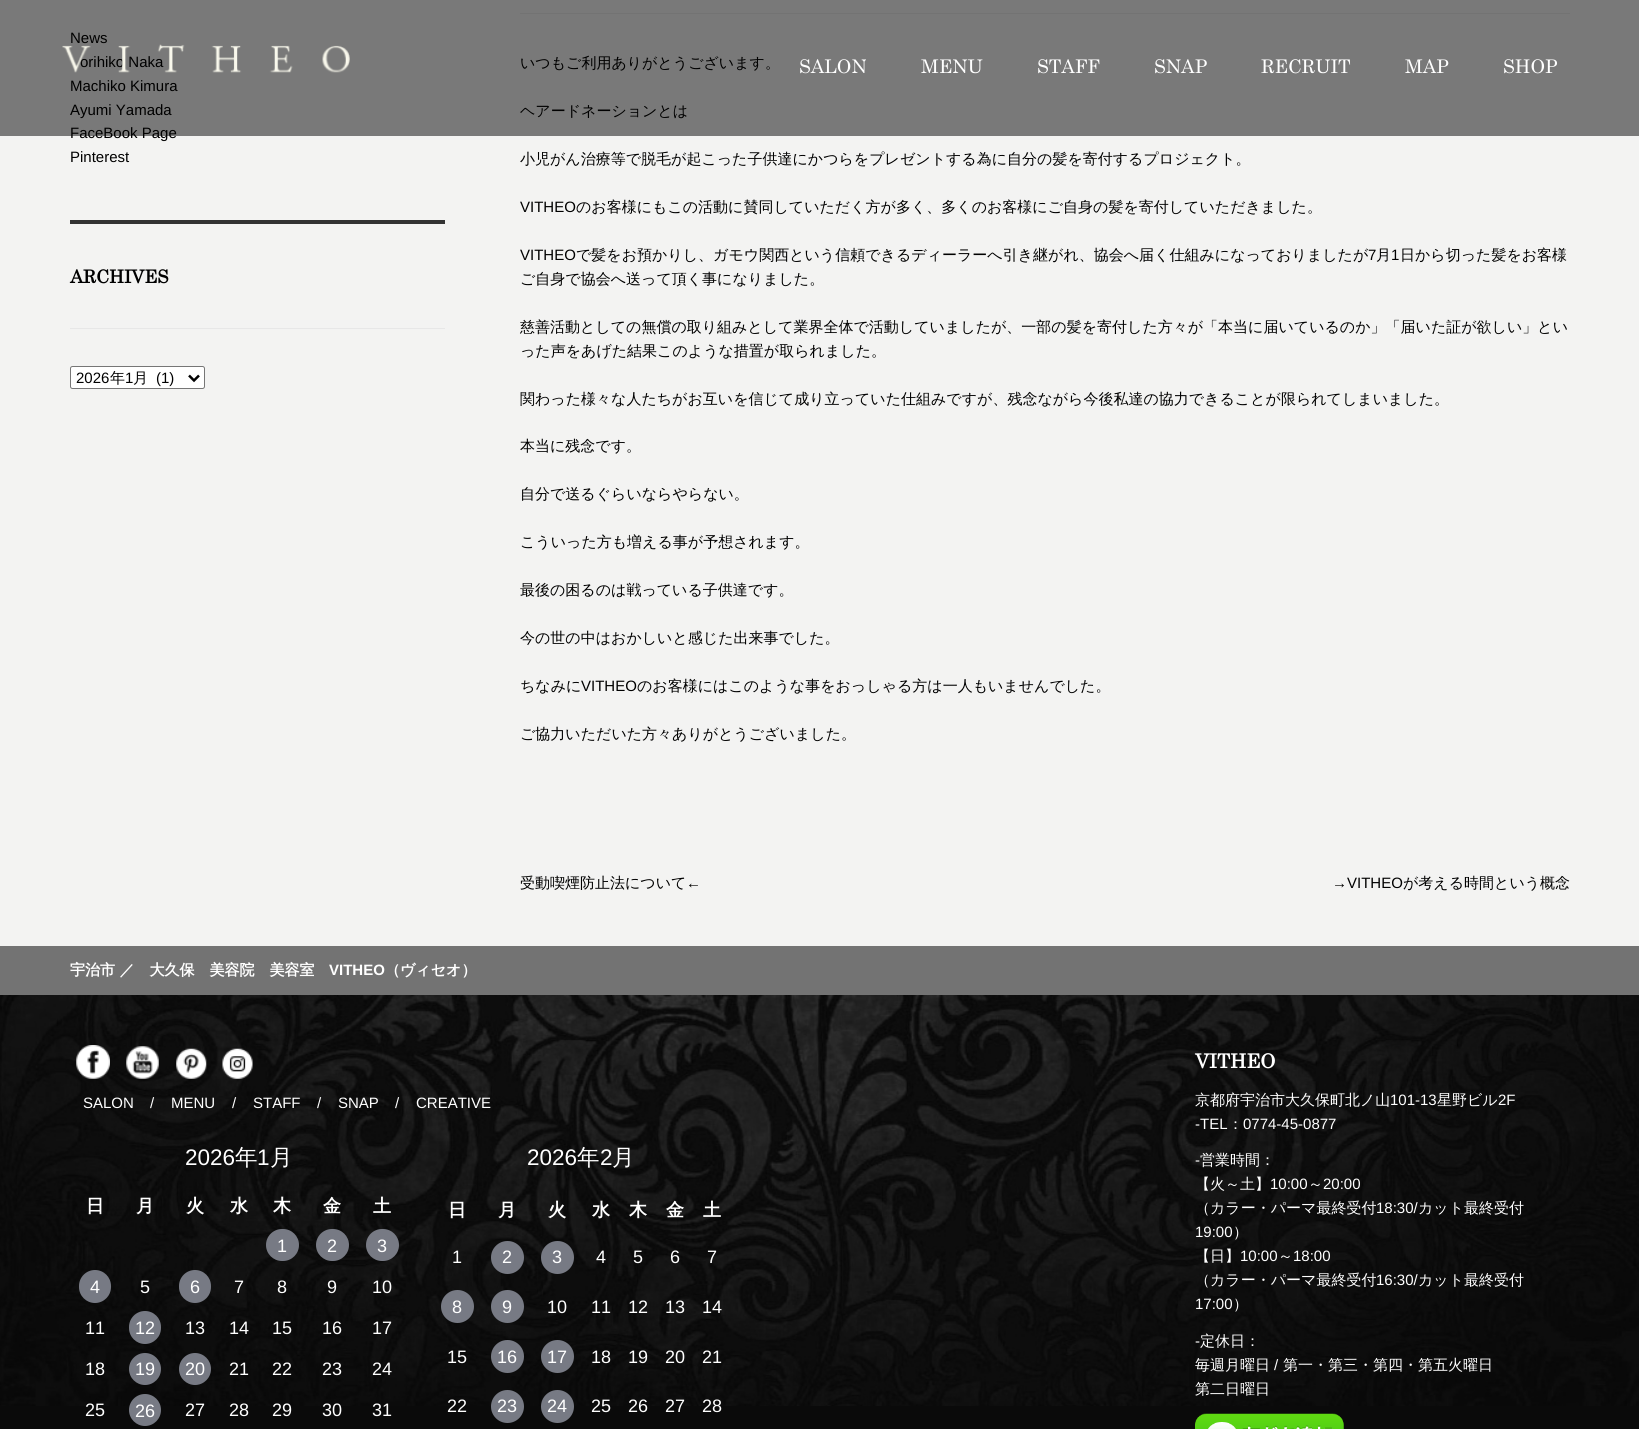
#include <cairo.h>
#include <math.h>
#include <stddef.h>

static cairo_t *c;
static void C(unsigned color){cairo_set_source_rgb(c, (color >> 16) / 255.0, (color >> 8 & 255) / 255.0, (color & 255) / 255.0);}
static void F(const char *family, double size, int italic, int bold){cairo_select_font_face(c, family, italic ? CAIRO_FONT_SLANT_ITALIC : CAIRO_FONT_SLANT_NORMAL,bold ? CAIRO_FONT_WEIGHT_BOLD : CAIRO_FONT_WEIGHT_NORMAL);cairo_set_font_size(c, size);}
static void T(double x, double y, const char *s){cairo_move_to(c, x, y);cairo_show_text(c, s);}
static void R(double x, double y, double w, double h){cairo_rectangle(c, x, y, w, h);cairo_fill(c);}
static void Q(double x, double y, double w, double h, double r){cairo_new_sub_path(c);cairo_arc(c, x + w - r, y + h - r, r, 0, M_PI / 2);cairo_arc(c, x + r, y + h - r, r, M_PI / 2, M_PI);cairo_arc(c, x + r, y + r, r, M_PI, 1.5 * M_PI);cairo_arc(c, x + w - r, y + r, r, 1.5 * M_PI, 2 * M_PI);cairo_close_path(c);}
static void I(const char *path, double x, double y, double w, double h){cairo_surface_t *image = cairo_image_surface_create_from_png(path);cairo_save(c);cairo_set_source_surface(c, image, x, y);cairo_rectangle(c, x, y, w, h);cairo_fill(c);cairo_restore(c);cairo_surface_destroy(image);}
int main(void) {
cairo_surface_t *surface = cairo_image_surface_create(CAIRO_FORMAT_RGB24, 1639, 1429);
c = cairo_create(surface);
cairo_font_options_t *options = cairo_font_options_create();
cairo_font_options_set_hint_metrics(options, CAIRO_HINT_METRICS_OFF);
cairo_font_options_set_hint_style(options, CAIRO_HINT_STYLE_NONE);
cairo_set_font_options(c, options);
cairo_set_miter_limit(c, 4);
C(0xf3f3f2);
cairo_paint(c);
F("Liberation Sans",15,0,0);
C(0x000000);
T(70,43,"News");
T(80,67,"orihiko Naka");
T(70,91,"Machiko Kimura");
T(70,115,"Ayumi Yamada");
T(70,138,"FaceBook Page");
T(70,162,"Pinterest");
C(0x333333);
R(70,220,375,4);
C(0xe7e7e7);
R(70,328,375,1);
F("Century",18,0,1);
C(0x000000);
T(70,283,"ARCHIVES");
C(0xffffff);
Q(70.5,366.5,134,22,2);
cairo_fill_preserve(c);
C(0x767676);
cairo_set_line_width(c,1);
cairo_stroke(c);
cairo_new_path(c);
cairo_move_to(c,189,375.5);
cairo_line_to(c,194,380.5);
cairo_line_to(c,199,375.5);
C(0x000000);
cairo_set_line_width(c,2.5);
cairo_stroke(c);
F("Liberation Sans",15,0,0);
T(76,383,"2026");
F("WenQuanYi Zen Hei Medium",15,0,0);
T(110,383,"年");
F("Liberation Sans",15,0,0);
T(125,383,"1");
F("WenQuanYi Zen Hei Medium",15,0,0);
T(133,383,"月");
F("Liberation Sans",15,0,0);
T(156,383,"(1)");
C(0xe7e7e7);
R(520,13,1050,1);
F("WenQuanYi Zen Hei Medium",15,0,0);
C(0x000000);
T(520,68,"いつもご利用ありがとうございます。");
T(520,116,"ヘアードネーションとは");
T(520,164,"小児がん治療等で脱毛が起こった子供達にかつらをプレゼントする為に自分の髪を寄付するプロジェクト。");
F("Liberation Sans",15,0,0);
T(520,212,"VITHEO");
F("WenQuanYi Zen Hei Medium",15,0,0);
T(576,212,"のお客様にもこの活動に賛同していただく方が多く、多くのお客様にご自身の髪を寄付していただきました。");
F("Liberation Sans",15,0,0);
T(520,260,"VITHEO");
F("WenQuanYi Zen Hei Medium",15,0,0);
T(576,260,"で髪をお預かりし、ガモウ関西という信頼できるディーラーへ引き継がれ、協会へ届く仕組みになっておりましたが");
F("Liberation Sans",15,0,0);
T(1368,260,"7");
F("WenQuanYi Zen Hei Medium",15,0,0);
T(1376,260,"月");
F("Liberation Sans",15,0,0);
T(1391,260,"1");
F("WenQuanYi Zen Hei Medium",15,0,0);
T(1400,260,"日から切った髪をお客様");
T(520,284,"ご自身で協会へ送って頂く事になりました。");
T(520,332,"慈善活動としての無償の取り組みとして業界全体で活動していましたが、一部の髪を寄付した方々が「本当に届いているのか」「届いた証が欲しい」とい");
T(520,356,"った声をあげた結果このような措置が取られました。");
T(520,404,"関わった様々な人たちがお互いを信じて成り立っていた仕組みですが、残念ながら今後私達の協力できることが限られてしまいました。");
T(520,451,"本当に残念です。");
T(520,499,"自分で送るぐらいならやらない。");
T(520,547,"こういった方も増える事が予想されます。");
T(520,595,"最後の困るのは戦っている子供達です。");
T(520,643,"今の世の中はおかしいと感じた出来事でした。");
T(520,691,"ちなみに");
F("Liberation Sans",15,0,0);
T(581,691,"VITHEO");
F("WenQuanYi Zen Hei Medium",15,0,0);
T(637,691,"のお客様にはこのような事をおっしゃる方は一人もいませんでした。");
T(520,739,"ご協力いただいた方々ありがとうございました。");
T(520,888,"受動喫煙防止法について");
F("Liberation Sans",15,0,0);
T(686,888,"←");
T(1332,888,"→VITHEO");
F("WenQuanYi Zen Hei Medium",15,0,0);
T(1403,888,"が考える時間という概念");
cairo_set_source_rgba(c,0,0,0,0.5);
R(0,0,1639,136);
I("1.png",62,44,288,29);
F("Century",18.75,0,0);
C(0xffffff);
T(799,73,"SALON");
T(921,73,"MENU");
T(1037,73,"STAFF");
T(1154,73,"SNAP");
T(1261,73,"RECRUIT");
T(1405,73,"MAP");
T(1503,73,"SHOP");
C(0x0a0a0a);
R(0,1406,1639,23);
I("2.png",0,995,1639,411);
C(0x737373);
R(0,946,1639,49);
F("WenQuanYi Zen Hei",15,0,1);
C(0xffffff);
T(70,975,"宇治市 ／　大久保　美容院　美容室");
F("Liberation Sans",15,0,1);
T(329,975,"VITHEO");
F("WenQuanYi Zen Hei",15,0,1);
T(385,975,"（ヴィセオ）");
I("3.png",76,1045,34,34);
I("4.png",126,1046,33,33);
I("5.png",176,1048,31,31);
I("6.png",222,1048,31,31);
F("Liberation Sans",15,0,0);
T(83,1108,"SALON");
T(150,1108,"/");
T(171,1108,"MENU");
T(232,1108,"/");
T(253,1108,"STAFF");
T(317,1108,"/");
T(338,1108,"SNAP");
T(395,1108,"/");
T(416,1108,"CREATIVE");
F("Liberation Sans",22.5,0,0);
T(185,1165,"2026");
F("WenQuanYi Zen Hei Medium",22.5,0,0);
T(235,1165,"年");
F("Liberation Sans",22.5,0,0);
T(257,1165,"1");
F("WenQuanYi Zen Hei Medium",22.5,0,0);
T(270,1165,"月");
F("WenQuanYi Zen Hei",18,0,1);
T(86,1212,"日");
T(136,1212,"月");
T(186,1212,"火");
T(230,1212,"水");
T(273,1212,"木");
T(323,1212,"金");
T(373,1212,"土");
C(0x777a84);
Q(266,1229,33,32,16);
cairo_fill(c);
F("Liberation Sans",18,0,0);
C(0xffffff);
T(277,1252,"1");
C(0x777a84);
Q(316,1229,33,32,16);
cairo_fill(c);
C(0xffffff);
T(327,1252,"2");
C(0x777a84);
Q(366,1229,33,32,16);
cairo_fill(c);
C(0xffffff);
T(377,1252,"3");
C(0x777a84);
Q(79,1270,32,33,16);
cairo_fill(c);
C(0xffffff);
T(90,1293,"4");
T(140,1293,"5");
C(0x777a84);
Q(179,1270,32,33,16);
cairo_fill(c);
C(0xffffff);
T(190,1293,"6");
T(234,1293,"7");
T(277,1293,"8");
T(327,1293,"9");
T(372,1293,"10");
T(85,1334,"11");
C(0x777a84);
Q(129,1311,32,33,16);
cairo_fill(c);
C(0xffffff);
T(135,1334,"12");
T(185,1334,"13");
T(229,1334,"14");
T(272,1334,"15");
T(322,1334,"16");
T(372,1334,"17");
T(85,1375,"18");
C(0x777a84);
cairo_new_path(c);
cairo_arc(c,145,1369,16,0,2 * M_PI);
cairo_fill(c);
C(0xffffff);
T(135,1375,"19");
C(0x777a84);
cairo_new_path(c);
cairo_arc(c,195,1369,16,0,2 * M_PI);
cairo_fill(c);
C(0xffffff);
T(185,1375,"20");
T(229,1375,"21");
T(272,1375,"22");
T(322,1375,"23");
T(372,1375,"24");
T(85,1416,"25");
C(0x777a84);
cairo_new_path(c);
cairo_arc(c,145,1410,16,0,2 * M_PI);
cairo_fill(c);
C(0xffffff);
T(135,1417,"26");
T(185,1416,"27");
T(229,1416,"28");
T(272,1416,"29");
T(322,1416,"30");
T(372,1416,"31");
F("Liberation Sans",22.5,0,0);
T(527,1165,"2026");
F("WenQuanYi Zen Hei Medium",22.5,0,0);
T(577,1165,"年");
F("Liberation Sans",22.5,0,0);
T(600,1165,"2");
F("WenQuanYi Zen Hei Medium",22.5,0,0);
T(612,1165,"月");
F("WenQuanYi Zen Hei",18,0,1);
T(448,1216,"日");
T(498,1216,"月");
T(548,1216,"火");
T(592,1216,"水");
T(629,1216,"木");
T(666,1216,"金");
T(703,1216,"土");
F("Liberation Sans",18,0,0);
T(452,1263,"1");
C(0x777a84);
cairo_new_path(c);
cairo_arc(c,507.5,1257.5,16.5,0,2 * M_PI);
cairo_fill(c);
C(0xffffff);
T(502,1263,"2");
C(0x777a84);
cairo_new_path(c);
cairo_arc(c,557.5,1257.5,16.5,0,2 * M_PI);
cairo_fill(c);
C(0xffffff);
T(552,1263,"3");
T(596,1263,"4");
T(633,1263,"5");
T(670,1263,"6");
T(707,1263,"7");
C(0x777a84);
cairo_new_path(c);
cairo_arc(c,457.5,1306.5,16.5,0,2 * M_PI);
cairo_fill(c);
C(0xffffff);
T(452,1313,"8");
C(0x777a84);
cairo_new_path(c);
cairo_arc(c,507.5,1306.5,16.5,0,2 * M_PI);
cairo_fill(c);
C(0xffffff);
T(502,1313,"9");
T(547,1313,"10");
T(591,1313,"11");
T(628,1313,"12");
T(665,1313,"13");
T(702,1313,"14");
T(447,1363,"15");
C(0x777a84);
cairo_new_path(c);
cairo_arc(c,507.5,1356.5,16.5,0,2 * M_PI);
cairo_fill(c);
C(0xffffff);
T(497,1363,"16");
C(0x777a84);
cairo_new_path(c);
cairo_arc(c,557.5,1356.5,16.5,0,2 * M_PI);
cairo_fill(c);
C(0xffffff);
T(547,1363,"17");
T(591,1363,"18");
T(628,1363,"19");
T(665,1363,"20");
T(702,1363,"21");
T(447,1412,"22");
C(0x777a84);
cairo_new_path(c);
cairo_arc(c,507.5,1406.5,16.5,0,2 * M_PI);
cairo_fill(c);
C(0xffffff);
T(497,1412,"23");
C(0x777a84);
cairo_new_path(c);
cairo_arc(c,557.5,1406.5,16.5,0,2 * M_PI);
cairo_fill(c);
C(0xffffff);
T(547,1412,"24");
T(591,1412,"25");
T(628,1412,"26");
T(665,1412,"27");
T(702,1412,"28");
F("Century",19.5,0,1);
T(1195,1068,"VITHEO");
F("WenQuanYi Zen Hei Medium",15,0,0);
T(1195,1105,"京都府宇治市大久保町北ノ山");
F("Liberation Sans",15,0,0);
T(1390,1105,"101-13");
F("WenQuanYi Zen Hei Medium",15,0,0);
T(1437,1105,"星野ビル");
F("Liberation Sans",15,0,0);
T(1498,1105,"2F");
T(1195,1129,"-TEL");
F("WenQuanYi Zen Hei Medium",15,0,0);
T(1228,1129,"：");
F("Liberation Sans",15,0,0);
T(1243,1129,"0774-45-0877");
T(1195,1165,"-");
F("WenQuanYi Zen Hei Medium",15,0,0);
T(1200,1165,"営業時間：");
T(1195,1189,"【火～土】");
F("Liberation Sans",15,0,0);
T(1270,1189,"10:00");
F("WenQuanYi Zen Hei Medium",15,0,0);
T(1308,1189,"～");
F("Liberation Sans",15,0,0);
T(1323,1189,"20:00");
F("WenQuanYi Zen Hei Medium",15,0,0);
T(1195,1213,"（カラー・パーマ最終受付");
F("Liberation Sans",15,0,0);
T(1376,1213,"18:30/");
F("WenQuanYi Zen Hei Medium",15,0,0);
T(1418,1213,"カット最終受付");
F("Liberation Sans",15,0,0);
T(1195,1237,"19:00");
F("WenQuanYi Zen Hei Medium",15,0,0);
T(1233,1237,"）");
T(1195,1261,"【日】");
F("Liberation Sans",15,0,0);
T(1240,1261,"10:00");
F("WenQuanYi Zen Hei Medium",15,0,0);
T(1278,1261,"～");
F("Liberation Sans",15,0,0);
T(1293,1261,"18:00");
F("WenQuanYi Zen Hei Medium",15,0,0);
T(1195,1285,"（カラー・パーマ最終受付");
F("Liberation Sans",15,0,0);
T(1376,1285,"16:30/");
F("WenQuanYi Zen Hei Medium",15,0,0);
T(1418,1285,"カット最終受付");
F("Liberation Sans",15,0,0);
T(1195,1309,"17:00");
F("WenQuanYi Zen Hei Medium",15,0,0);
T(1233,1309,"）");
F("Liberation Sans",15,0,0);
T(1195,1346,"-");
F("WenQuanYi Zen Hei Medium",15,0,0);
T(1200,1346,"定休日：");
T(1195,1370,"毎週月曜日");
F("Liberation Sans",15,0,0);
T(1274,1370,"/");
F("WenQuanYi Zen Hei Medium",15,0,0);
T(1283,1370,"第一・第三・第四・第五火曜日");
T(1195,1394,"第二日曜日");
I("7.png",1195,1413,149,16);
cairo_surface_write_to_png(surface, "o.png");
cairo_font_options_destroy(options);
cairo_destroy(c);
cairo_surface_destroy(surface);
return 0;
}
